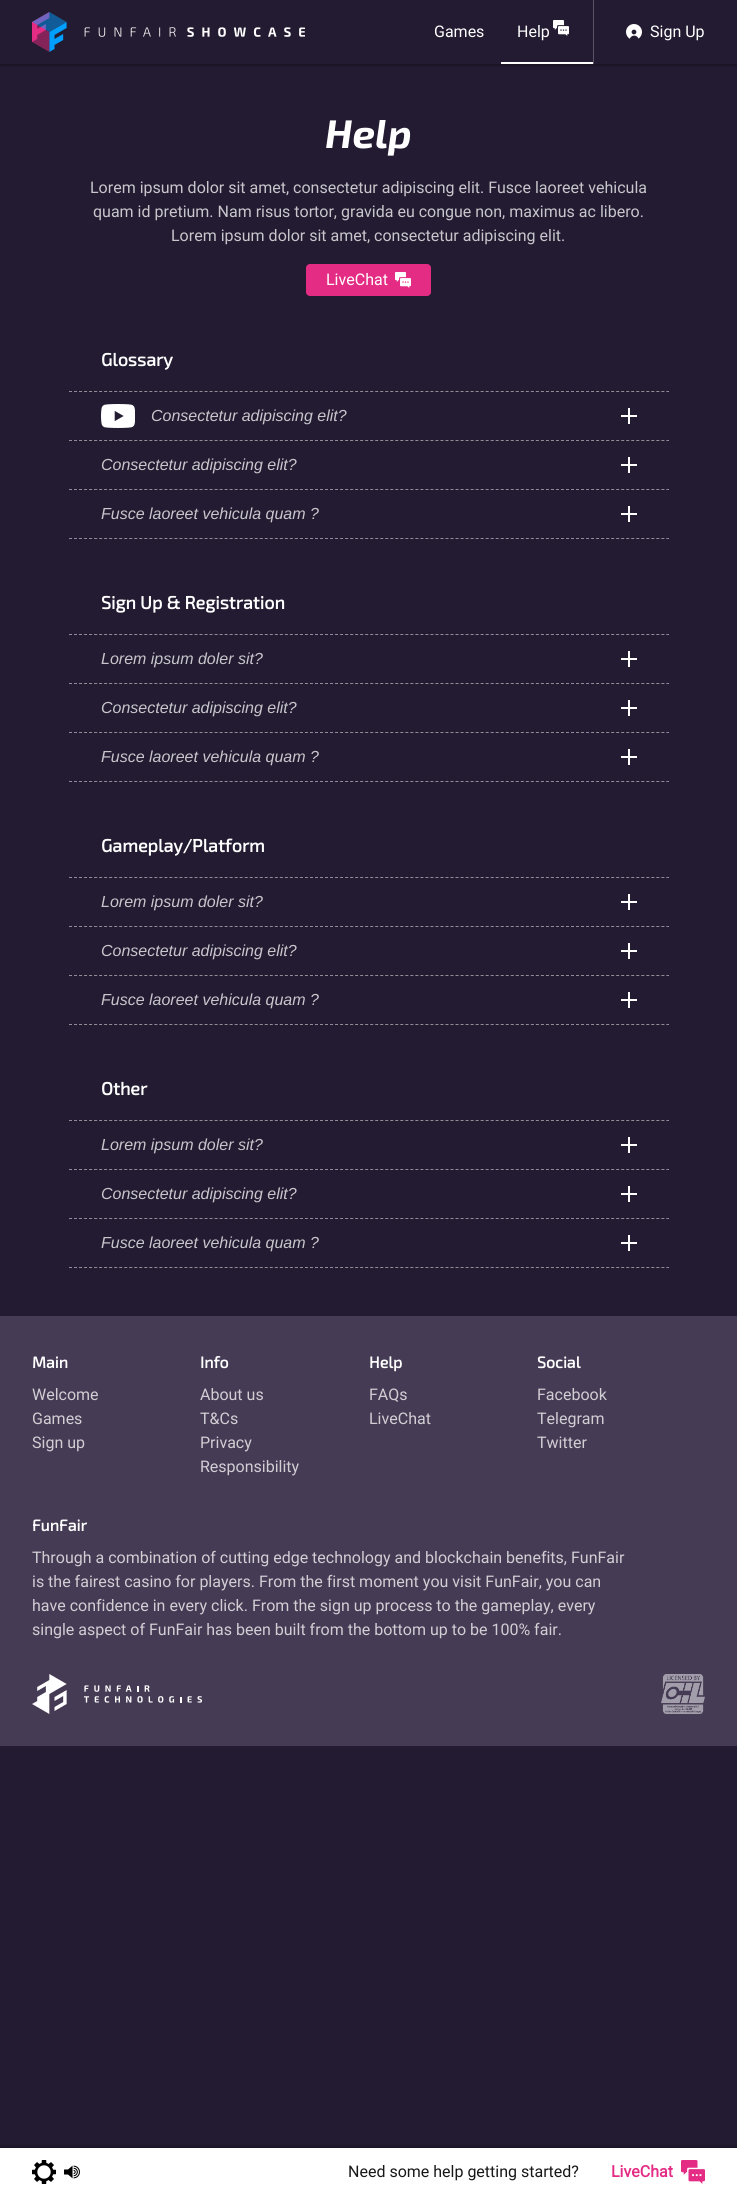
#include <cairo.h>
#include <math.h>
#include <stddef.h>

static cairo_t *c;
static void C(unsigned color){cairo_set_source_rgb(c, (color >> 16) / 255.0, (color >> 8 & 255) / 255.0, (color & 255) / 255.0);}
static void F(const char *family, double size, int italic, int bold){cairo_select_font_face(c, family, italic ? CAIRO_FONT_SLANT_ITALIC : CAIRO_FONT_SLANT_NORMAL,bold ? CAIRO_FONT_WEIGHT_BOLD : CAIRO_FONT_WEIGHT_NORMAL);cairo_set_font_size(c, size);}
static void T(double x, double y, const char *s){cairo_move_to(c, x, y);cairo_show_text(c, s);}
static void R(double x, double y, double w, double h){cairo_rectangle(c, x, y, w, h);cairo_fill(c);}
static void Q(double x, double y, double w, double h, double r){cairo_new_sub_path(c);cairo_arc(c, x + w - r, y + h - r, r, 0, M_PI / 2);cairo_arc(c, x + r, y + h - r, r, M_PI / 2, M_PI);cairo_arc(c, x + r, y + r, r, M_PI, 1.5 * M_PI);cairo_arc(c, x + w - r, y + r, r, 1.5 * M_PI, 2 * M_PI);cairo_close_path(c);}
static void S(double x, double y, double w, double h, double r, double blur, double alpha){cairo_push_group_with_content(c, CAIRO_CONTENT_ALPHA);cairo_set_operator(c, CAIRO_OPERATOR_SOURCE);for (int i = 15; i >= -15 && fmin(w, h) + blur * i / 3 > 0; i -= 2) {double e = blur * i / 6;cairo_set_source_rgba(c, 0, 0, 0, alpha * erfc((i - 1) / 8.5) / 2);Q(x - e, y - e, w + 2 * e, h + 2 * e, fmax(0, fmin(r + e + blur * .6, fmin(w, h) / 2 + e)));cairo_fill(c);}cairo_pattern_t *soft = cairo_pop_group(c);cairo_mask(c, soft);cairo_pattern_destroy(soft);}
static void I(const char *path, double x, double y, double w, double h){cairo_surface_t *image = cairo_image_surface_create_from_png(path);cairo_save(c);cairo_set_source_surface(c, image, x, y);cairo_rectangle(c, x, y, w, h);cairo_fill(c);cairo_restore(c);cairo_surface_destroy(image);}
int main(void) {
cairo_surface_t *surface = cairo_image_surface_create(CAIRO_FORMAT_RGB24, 737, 2196);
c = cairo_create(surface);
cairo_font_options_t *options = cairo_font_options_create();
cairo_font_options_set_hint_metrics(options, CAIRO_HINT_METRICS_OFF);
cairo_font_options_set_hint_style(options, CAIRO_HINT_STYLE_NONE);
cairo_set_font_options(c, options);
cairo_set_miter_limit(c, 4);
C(0x231b31);
cairo_paint(c);
cairo_save(c);
cairo_rectangle(c,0,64,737,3);
cairo_clip(c);
C(0x000000);
S(0,2,737,64,0,1,.25);
cairo_restore(c);
I("1.png",32,12,273,40);
F("Roboto",16,0,0);
C(0xffffff);
T(434,37,"Games");
R(501,62,92,2);
T(517,37,"Help");
I("2.png",553,20,16,16);
C(0x5a5465);
R(593,0,1,64);
I("3.png",626,24,16,15);
C(0xffffff);
T(650,37,"Sign Up");
F("Exo 2",40,1,1);
T(325,148,"Help");
F("Roboto",16,0,0);
C(0xc8c6cc);
T(90,193,"Lorem ipsum dolor sit amet, consectetur adipiscing elit. Fusce laoreet vehicula");
T(93,217,"quam id pretium. Nam risus tortor, gravida eu congue non, maximus ac libero.");
T(171,241,"Lorem ipsum dolor sit amet, consectetur adipiscing elit.");
C(0xe42c85);
Q(306,264,125,32,4);
cairo_fill(c);
C(0xffffff);
T(326,285,"LiveChat");
I("4.png",395,272,16,16);
cairo_new_path(c);
cairo_move_to(c,69,391.5);
cairo_line_to(c,669,391.5);
C(0x918d98);
cairo_set_line_width(c,1);
cairo_set_dash(c,(double[]){3,2.02},2,0);
cairo_stroke(c);
F("Exo 2",18,0,1);
C(0xffffff);
T(101,366,"Glossary");
I("5.png",101,404,34,24);
F("Liberation Sans",16,1,0);
C(0xc8c6cc);
T(151,421,"Consectetur adipiscing elit?");
C(0xffffff);
R(628,408,2,16);
R(621,415,16,2);
cairo_new_path(c);
cairo_move_to(c,69,440.5);
cairo_line_to(c,669,440.5);
C(0x918d98);
cairo_stroke(c);
C(0xc8c6cc);
T(101,470,"Consectetur adipiscing elit?");
C(0xffffff);
R(628,457,2,16);
R(621,464,16,2);
cairo_new_path(c);
cairo_move_to(c,69,489.5);
cairo_line_to(c,669,489.5);
C(0x918d98);
cairo_stroke(c);
C(0xc8c6cc);
T(101,519,"Fusce laoreet vehicula quam ?");
C(0xffffff);
R(628,506,2,16);
R(621,513,16,2);
cairo_new_path(c);
cairo_move_to(c,69,538.5);
cairo_line_to(c,669,538.5);
C(0x918d98);
cairo_stroke(c);
cairo_new_path(c);
cairo_move_to(c,69,634.5);
cairo_line_to(c,669,634.5);
cairo_stroke(c);
F("Exo 2",18,0,1);
C(0xffffff);
T(101,609,"Sign Up & Registration");
F("Liberation Sans",16,1,0);
C(0xc8c6cc);
T(101,664,"Lorem ipsum doler sit?");
C(0xffffff);
R(628,651,2,16);
R(621,658,16,2);
cairo_new_path(c);
cairo_move_to(c,69,683.5);
cairo_line_to(c,669,683.5);
C(0x918d98);
cairo_stroke(c);
C(0xc8c6cc);
T(101,713,"Consectetur adipiscing elit?");
C(0xffffff);
R(628,700,2,16);
R(621,707,16,2);
cairo_new_path(c);
cairo_move_to(c,69,732.5);
cairo_line_to(c,669,732.5);
C(0x918d98);
cairo_stroke(c);
C(0xc8c6cc);
T(101,762,"Fusce laoreet vehicula quam ?");
C(0xffffff);
R(628,749,2,16);
R(621,756,16,2);
cairo_new_path(c);
cairo_move_to(c,69,781.5);
cairo_line_to(c,669,781.5);
C(0x918d98);
cairo_stroke(c);
cairo_new_path(c);
cairo_move_to(c,69,877.5);
cairo_line_to(c,669,877.5);
cairo_stroke(c);
F("Exo 2",18,0,1);
C(0xffffff);
T(101,852,"Gameplay/Platform");
F("Liberation Sans",16,1,0);
C(0xc8c6cc);
T(101,907,"Lorem ipsum doler sit?");
C(0xffffff);
R(628,894,2,16);
R(621,901,16,2);
cairo_new_path(c);
cairo_move_to(c,69,926.5);
cairo_line_to(c,669,926.5);
C(0x918d98);
cairo_stroke(c);
C(0xc8c6cc);
T(101,956,"Consectetur adipiscing elit?");
C(0xffffff);
R(628,943,2,16);
R(621,950,16,2);
cairo_new_path(c);
cairo_move_to(c,69,975.5);
cairo_line_to(c,669,975.5);
C(0x918d98);
cairo_stroke(c);
C(0xc8c6cc);
T(101,1005,"Fusce laoreet vehicula quam ?");
C(0xffffff);
R(628,992,2,16);
R(621,999,16,2);
cairo_new_path(c);
cairo_move_to(c,69,1024.5);
cairo_line_to(c,669,1024.5);
C(0x918d98);
cairo_stroke(c);
cairo_new_path(c);
cairo_move_to(c,69,1120.5);
cairo_line_to(c,669,1120.5);
cairo_stroke(c);
F("Exo 2",18,0,1);
C(0xffffff);
T(101,1095,"Other");
F("Liberation Sans",16,1,0);
C(0xc8c6cc);
T(101,1150,"Lorem ipsum doler sit?");
C(0xffffff);
R(628,1137,2,16);
R(621,1144,16,2);
cairo_new_path(c);
cairo_move_to(c,69,1169.5);
cairo_line_to(c,669,1169.5);
C(0x918d98);
cairo_stroke(c);
C(0xc8c6cc);
T(101,1199,"Consectetur adipiscing elit?");
C(0xffffff);
R(628,1186,2,16);
R(621,1193,16,2);
cairo_new_path(c);
cairo_move_to(c,69,1218.5);
cairo_line_to(c,669,1218.5);
C(0x918d98);
cairo_stroke(c);
C(0xc8c6cc);
T(101,1248,"Fusce laoreet vehicula quam ?");
C(0xffffff);
R(628,1235,2,16);
R(621,1242,16,2);
cairo_new_path(c);
cairo_move_to(c,69,1267.5);
cairo_line_to(c,669,1267.5);
C(0x918d98);
cairo_stroke(c);
C(0x453b54);
R(0,1316,737,430);
F("Exo 2",16,0,1);
C(0xffffff);
T(32,1368,"Main");
F("Roboto",16,0,0);
C(0xd1ced4);
T(32,1400,"Welcome");
T(32,1424,"Games");
T(32,1448,"Sign up");
F("Exo 2",16,0,1);
C(0xffffff);
T(200,1368,"Info");
F("Roboto",16,0,0);
C(0xd1ced4);
T(200,1400,"About us");
T(200,1424,"T&Cs");
T(200,1448,"Privacy");
T(200,1472,"Responsibility");
F("Exo 2",16,0,1);
C(0xffffff);
T(369,1368,"Help");
F("Roboto",16,0,0);
C(0xd1ced4);
T(369,1400,"FAQs");
T(369,1424,"LiveChat");
F("Exo 2",16,0,1);
C(0xffffff);
T(537,1368,"Social");
F("Roboto",16,0,0);
C(0xd1ced4);
T(537,1400,"Facebook");
T(537,1424,"Telegram");
T(537,1448,"Twitter");
F("Exo 2",16,0,1);
C(0xffffff);
T(32,1531,"FunFair");
F("Roboto",16,0,0);
C(0xd1ced4);
T(32,1563,"Through a combination of cutting edge technology and blockchain benefits, FunFair");
T(32,1587,"is the fairest casino for players. From the first moment you visit FunFair, you can");
T(32,1611,"have confidence in every click. From the sign up process to the gameplay, every");
T(32,1635,"single aspect of FunFair has been built from the bottom up to be 100% fair.");
I("6.png",32,1674,170,40);
I("7.png",661,1674,44,40);
C(0x000000);
S(0,2146,737,48,0,1,.25);
C(0xffffff);
R(0,2148,737,48);
I("8.png",32,2160,24,24);
I("9.png",64,2165,16,14);
C(0x181818);
T(348,2177,"Need some help getting started?");
F("Roboto",16,0,1);
C(0xe42c85);
T(611,2177,"LiveChat");
I("10.png",681,2160,24,24);
cairo_surface_write_to_png(surface, "o.png");
cairo_font_options_destroy(options);
cairo_destroy(c);
cairo_surface_destroy(surface);
return 0;
}
